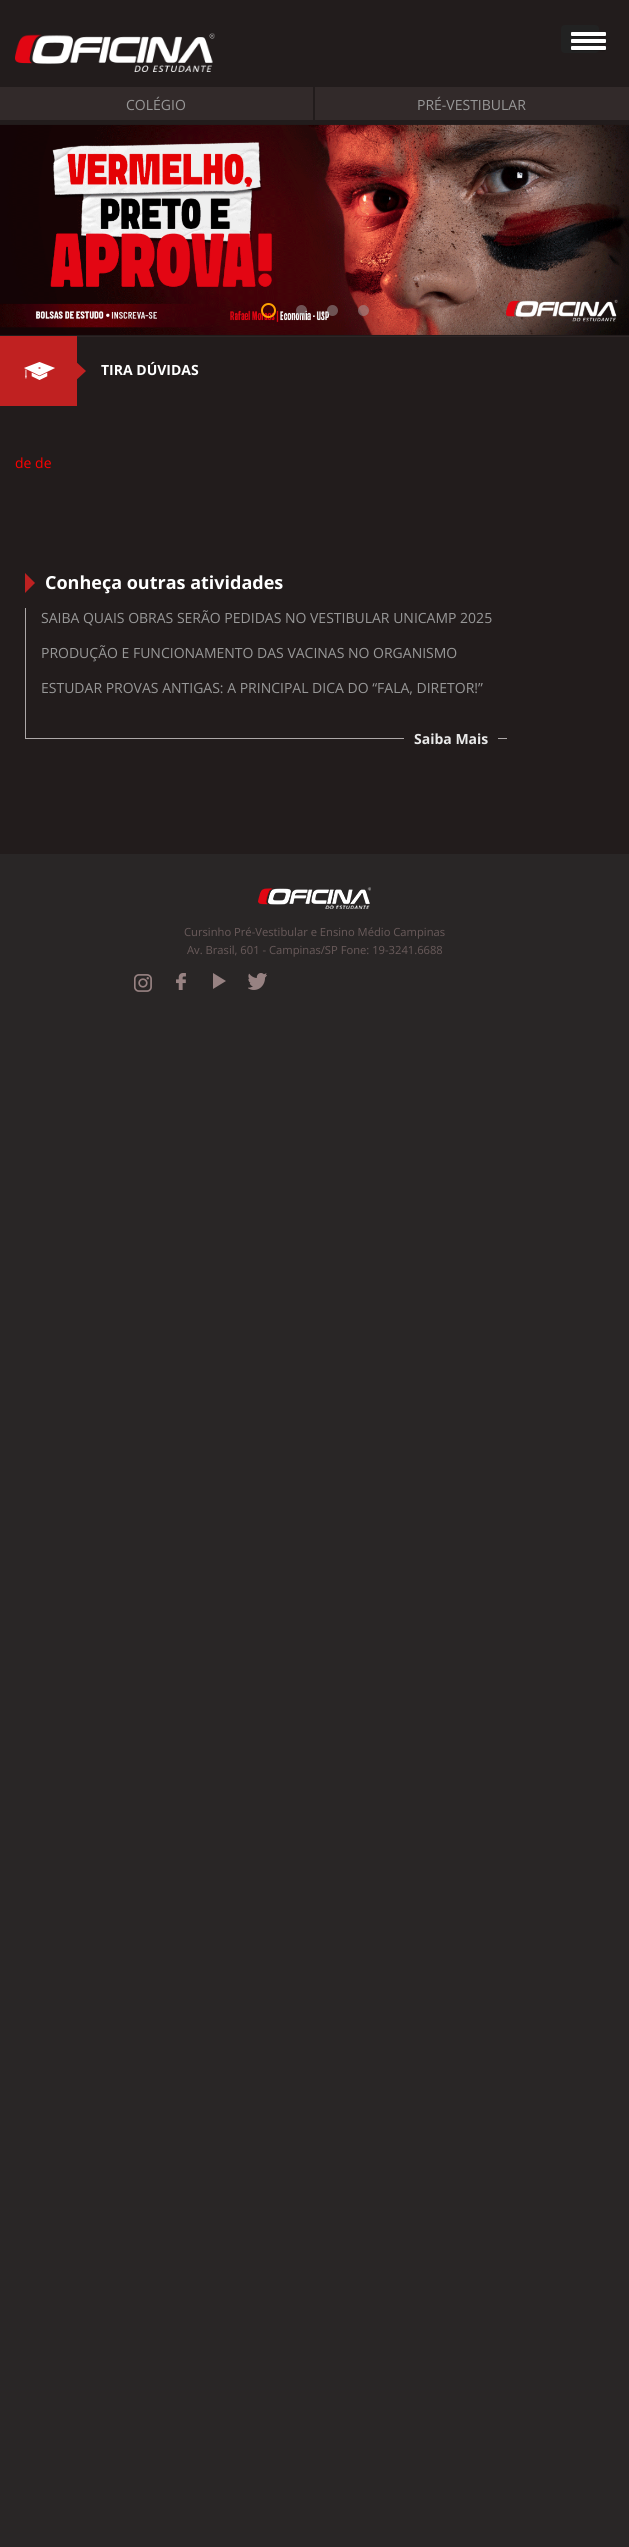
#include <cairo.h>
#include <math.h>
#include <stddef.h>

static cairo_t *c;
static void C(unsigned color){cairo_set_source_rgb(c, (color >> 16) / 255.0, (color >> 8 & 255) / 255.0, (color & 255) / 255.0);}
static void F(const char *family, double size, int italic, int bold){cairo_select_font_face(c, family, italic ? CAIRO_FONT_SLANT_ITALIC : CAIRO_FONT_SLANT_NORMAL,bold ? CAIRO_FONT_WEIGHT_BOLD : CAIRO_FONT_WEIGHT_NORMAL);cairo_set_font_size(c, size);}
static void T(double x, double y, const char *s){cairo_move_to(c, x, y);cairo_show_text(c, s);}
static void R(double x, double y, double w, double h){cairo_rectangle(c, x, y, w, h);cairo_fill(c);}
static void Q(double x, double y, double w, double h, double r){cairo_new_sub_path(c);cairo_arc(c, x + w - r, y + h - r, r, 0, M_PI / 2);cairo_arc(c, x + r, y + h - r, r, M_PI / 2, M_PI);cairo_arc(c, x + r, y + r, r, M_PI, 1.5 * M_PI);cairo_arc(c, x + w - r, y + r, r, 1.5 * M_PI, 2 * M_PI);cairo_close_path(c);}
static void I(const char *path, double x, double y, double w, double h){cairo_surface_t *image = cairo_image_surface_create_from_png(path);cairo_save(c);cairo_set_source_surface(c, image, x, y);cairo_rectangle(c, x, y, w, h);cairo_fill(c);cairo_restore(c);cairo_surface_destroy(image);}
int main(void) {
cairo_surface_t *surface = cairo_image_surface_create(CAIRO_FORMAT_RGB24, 629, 2547);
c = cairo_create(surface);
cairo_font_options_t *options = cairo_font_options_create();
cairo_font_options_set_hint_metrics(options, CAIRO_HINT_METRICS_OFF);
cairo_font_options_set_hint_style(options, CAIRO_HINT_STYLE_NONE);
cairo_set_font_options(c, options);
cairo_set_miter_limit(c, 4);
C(0x292626);
cairo_paint(c);
C(0x221c1c);
R(0,0,629,854);
C(0x222222);
Q(561,25,38,28,4);
cairo_fill(c);
cairo_set_source_rgba(c,0,0,0,0.25);
cairo_new_path(c);
cairo_move_to(c,571,35);
cairo_curve_to(c,571,38.5,574,37,577.5,37);
cairo_line_to(c,599.5,37);
cairo_curve_to(c,603,37,606,38.5,606,35);
cairo_curve_to(c,606,35.5,605.5,36,605,36);
cairo_line_to(c,571.5,36);
cairo_close_path(c);
cairo_fill(c);
C(0xffffff);
Q(571,32,35,4,1);
cairo_fill(c);
cairo_set_source_rgba(c,0,0,0,0.25);
cairo_new_path(c);
cairo_move_to(c,571,42);
cairo_curve_to(c,571,45.5,574,44,577.5,44);
cairo_line_to(c,599.5,44);
cairo_curve_to(c,603,44,606,45.5,606,42);
cairo_curve_to(c,606,42.5,605.5,43,605,43);
cairo_line_to(c,571.5,43);
cairo_close_path(c);
cairo_fill(c);
C(0xffffff);
Q(571,39,35,4,1);
cairo_fill(c);
cairo_set_source_rgba(c,0,0,0,0.25);
cairo_new_path(c);
cairo_move_to(c,571,49);
cairo_curve_to(c,571,52.5,574,51,577.5,51);
cairo_line_to(c,599.5,51);
cairo_curve_to(c,603,51,606,52.5,606,49);
cairo_curve_to(c,606,49.5,605.5,50,605,50);
cairo_line_to(c,571.5,50);
cairo_close_path(c);
cairo_fill(c);
C(0xffffff);
Q(571,46,35,4,1);
cairo_fill(c);
I("1.png",15,33,200,39);
C(0x322a2a);
R(0,87,313,33);
F("Open Sans",14,0,0);
C(0x989898);
T(126,110,"COLÉGIO");
C(0x322a2a);
R(315,87,314,33);
C(0x989898);
T(417,110,"PRÉ-VESTIBULAR");
I("2.png",0,124,629,211);
cairo_arc(c,268.5,310.5,6.5,0,2 * M_PI);
C(0xffa200);
cairo_stroke(c);
cairo_set_source_rgba(c,0.627,0.627,0.627,0.5);
cairo_arc(c,301.5,310.5,5.5,0,2 * M_PI);
cairo_fill(c);
cairo_arc(c,332.5,310.5,5.5,0,2 * M_PI);
cairo_fill(c);
cairo_arc(c,363.5,310.5,5.5,0,2 * M_PI);
cairo_fill(c);
C(0x2d2525);
R(77,336,552,1);
I("3.png",0,336,86,70);
F("Open Sans",14,0,1);
C(0xffffff);
T(101,375,"TIRA DÚVIDAS");
F("Open Sans",14,0,0);
C(0xff0000);
T(15,468,"de de");
C(0xbe2121);
cairo_new_path(c);
cairo_move_to(c,25,593);
cairo_line_to(c,25,573);
cairo_line_to(c,35,583);
cairo_close_path(c);
cairo_fill(c);
F("Open Sans",18,0,1);
C(0xffffff);
T(45,589,"Conheça outras atividades");
C(0xada8a8);
R(25,738,482,1);
R(25,608,1,131);
F("Open Sans",14,0,0);
C(0x989898);
T(41,623,"SAIBA QUAIS OBRAS SERÃO PEDIDAS NO VESTIBULAR UNICAMP 2025");
T(41,658,"PRODUÇÃO E FUNCIONAMENTO DAS VACINAS NO ORGANISMO");
T(41,693,"ESTUDAR PROVAS ANTIGAS: A PRINCIPAL DICA DO “FALA, DIRETOR!”");
C(0x221c1c);
R(404,738,94,1);
F("Open Sans",14,0,1);
C(0xe9e9e9);
T(414,744,"Saiba Mais");
I("4.png",258,887,113,22);
F("Open Sans",11.2,0,0);
C(0x695a5a);
T(184,936,"Cursinho Pré-Vestibular e Ensino Médio Campinas");
T(187,954,"Av. Brasil, 601 - Campinas/SP Fone: 19-3241.6688");
I("5.png",134,974,18,18);
I("6.png",176,973,10,17);
I("7.png",213,973,13,16);
I("8.png",248,973,19,17);
cairo_surface_write_to_png(surface, "o.png");
cairo_font_options_destroy(options);
cairo_destroy(c);
cairo_surface_destroy(surface);
return 0;
}
